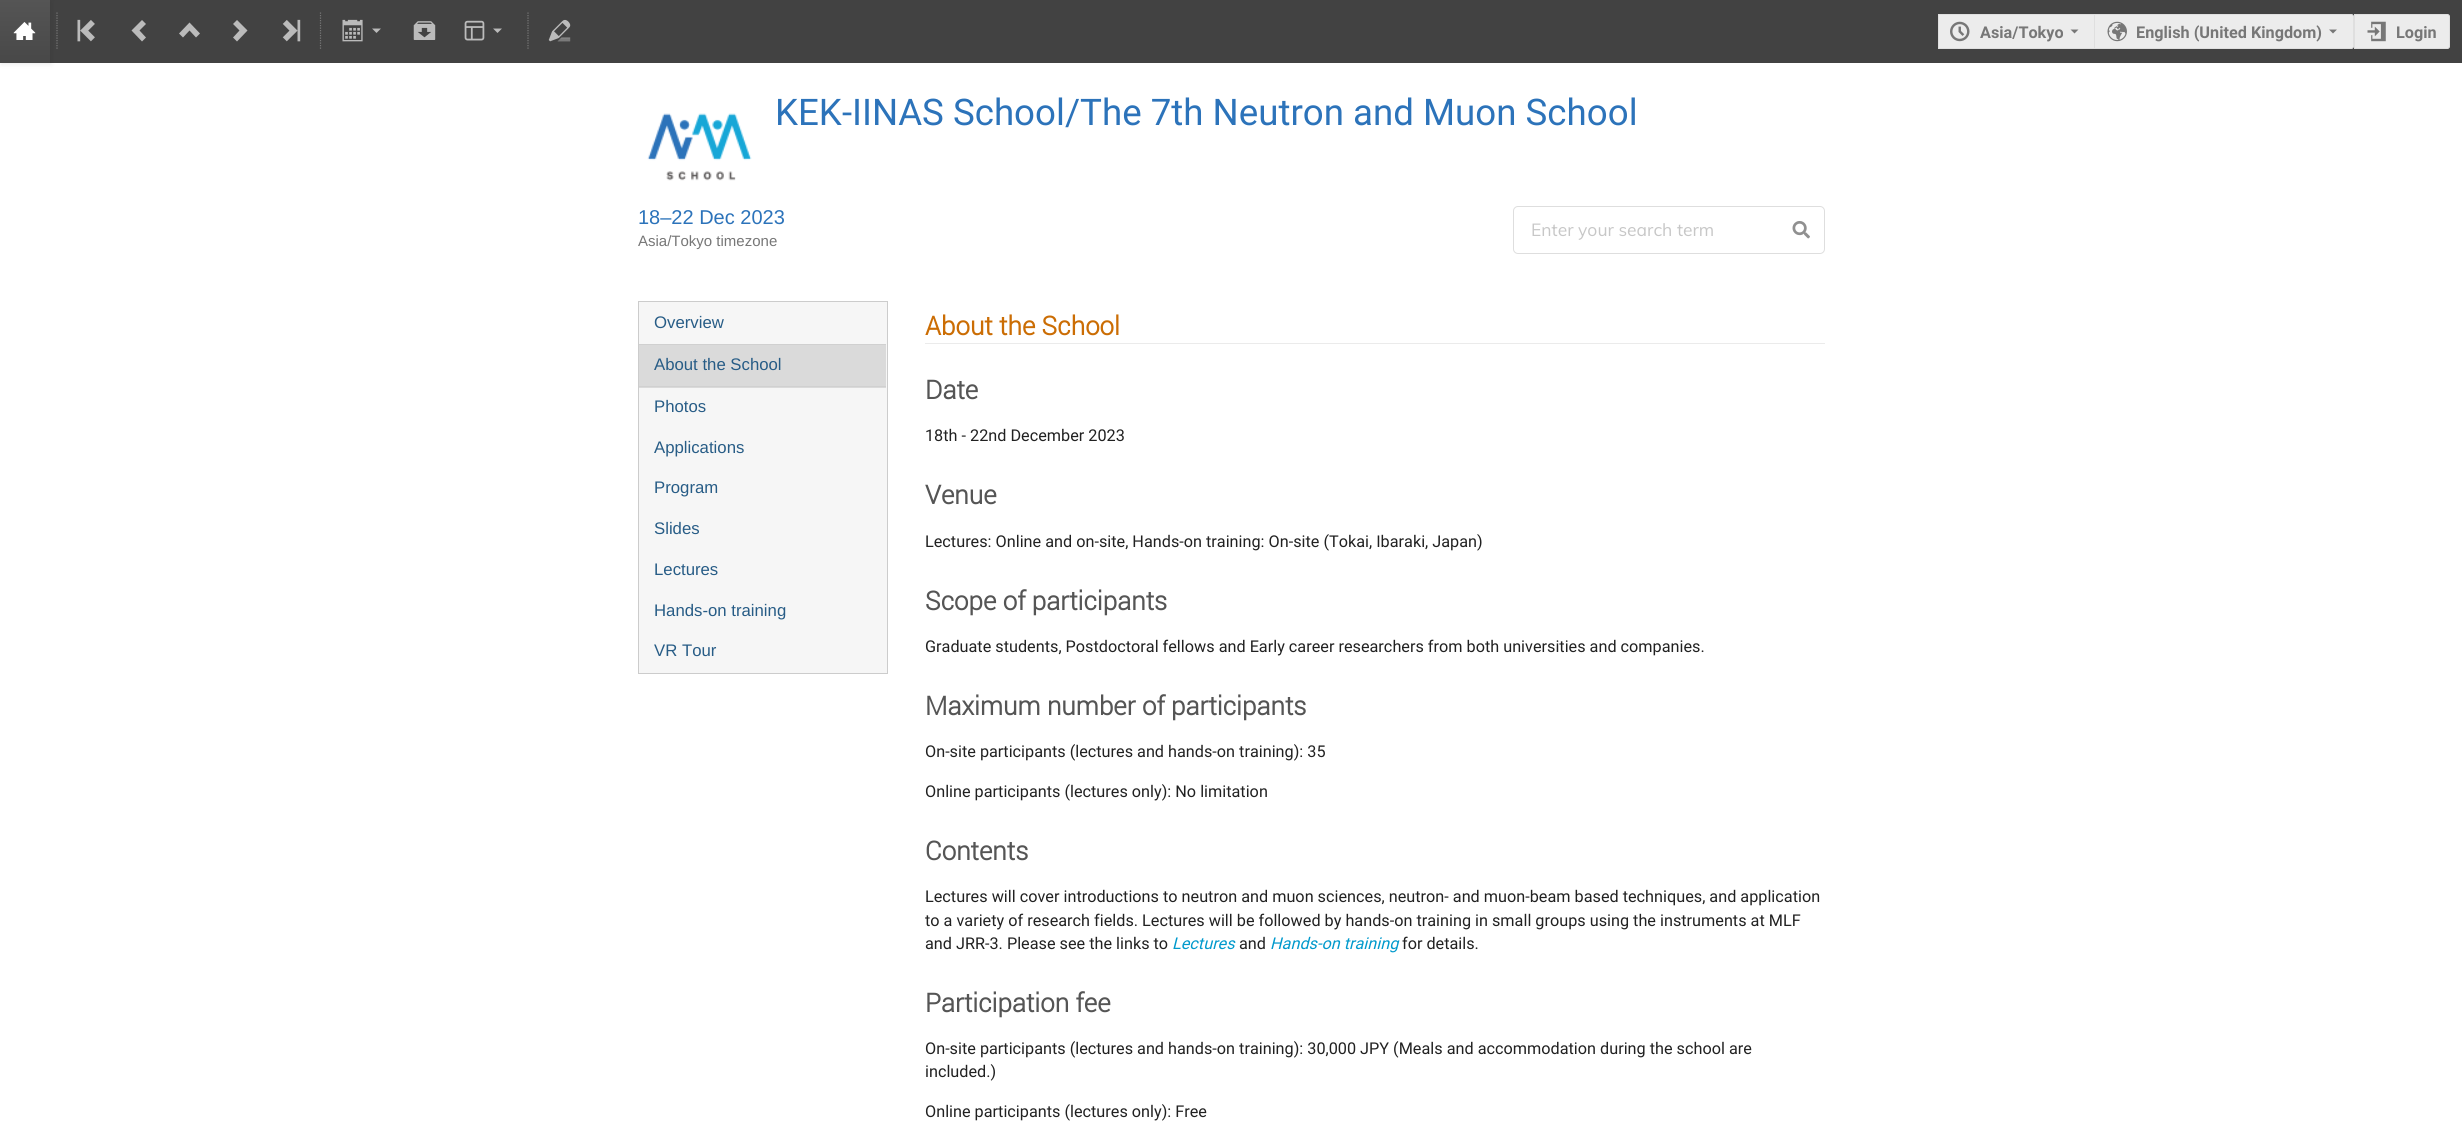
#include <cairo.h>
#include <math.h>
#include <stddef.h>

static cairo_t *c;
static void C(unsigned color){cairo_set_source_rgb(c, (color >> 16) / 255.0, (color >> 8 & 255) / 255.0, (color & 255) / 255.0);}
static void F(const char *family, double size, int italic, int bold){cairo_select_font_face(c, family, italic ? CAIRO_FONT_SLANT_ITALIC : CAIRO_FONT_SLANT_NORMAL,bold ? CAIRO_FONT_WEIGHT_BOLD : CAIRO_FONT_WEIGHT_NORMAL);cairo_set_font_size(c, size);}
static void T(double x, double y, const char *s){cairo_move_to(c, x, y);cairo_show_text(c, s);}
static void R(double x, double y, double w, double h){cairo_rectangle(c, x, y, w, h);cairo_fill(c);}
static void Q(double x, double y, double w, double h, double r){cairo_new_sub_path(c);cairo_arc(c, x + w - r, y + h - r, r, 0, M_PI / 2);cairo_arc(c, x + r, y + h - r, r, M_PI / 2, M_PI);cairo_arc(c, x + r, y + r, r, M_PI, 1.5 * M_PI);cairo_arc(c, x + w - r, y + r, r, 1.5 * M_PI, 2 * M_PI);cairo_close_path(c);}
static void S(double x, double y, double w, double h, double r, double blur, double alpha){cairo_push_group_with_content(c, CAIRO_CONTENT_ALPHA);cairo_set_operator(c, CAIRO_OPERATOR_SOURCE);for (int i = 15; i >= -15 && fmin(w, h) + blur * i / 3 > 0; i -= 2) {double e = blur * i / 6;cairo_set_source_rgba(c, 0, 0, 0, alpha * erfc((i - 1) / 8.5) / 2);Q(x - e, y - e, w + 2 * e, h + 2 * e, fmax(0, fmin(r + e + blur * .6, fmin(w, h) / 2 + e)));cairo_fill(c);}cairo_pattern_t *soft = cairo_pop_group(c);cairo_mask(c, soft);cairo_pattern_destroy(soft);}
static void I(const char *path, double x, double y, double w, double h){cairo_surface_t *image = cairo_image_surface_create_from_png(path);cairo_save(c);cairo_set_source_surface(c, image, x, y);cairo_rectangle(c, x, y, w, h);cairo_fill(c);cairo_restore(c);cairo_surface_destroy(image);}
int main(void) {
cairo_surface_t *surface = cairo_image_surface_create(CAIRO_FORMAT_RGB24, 2462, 1134);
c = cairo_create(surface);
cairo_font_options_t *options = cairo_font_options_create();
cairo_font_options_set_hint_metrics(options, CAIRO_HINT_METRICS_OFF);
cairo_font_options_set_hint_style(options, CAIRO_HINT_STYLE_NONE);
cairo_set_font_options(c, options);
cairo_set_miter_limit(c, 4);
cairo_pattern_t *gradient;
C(0xffffff);
cairo_paint(c);
C(0x424242);
R(50,0,2412,63);
C(0x141414);
S(1,1,50,63,0,2.5,.1);
gradient = cairo_pattern_create_linear(25,0,25,63);
cairo_pattern_add_color_stop_rgba(gradient,0,0.333,0.333,0.333,1);
cairo_pattern_add_color_stop_rgba(gradient,1,0.282,0.282,0.282,1);
cairo_set_source(c,gradient);
cairo_pattern_destroy(gradient);
R(0,0,50,63);
I("1.png",13,22,23,18);
cairo_new_path(c);
cairo_move_to(c,57,12.5);
cairo_line_to(c,57,50);
C(0x777777);
cairo_set_line_width(c,1.2);
cairo_set_dash(c,(double[]){1.25,1.25},2,0);
cairo_stroke(c);
I("2.png",77,19,18,23);
C(0xbbbbbb);
cairo_new_path(c);
cairo_move_to(c,142,41.5);
cairo_line_to(c,146,37.5);
cairo_line_to(c,139.5,30.5);
cairo_line_to(c,146,24);
cairo_line_to(c,142,20);
cairo_line_to(c,131.5,30.5);
cairo_close_path(c);
cairo_fill(c);
cairo_new_path(c);
cairo_move_to(c,179,33.5);
cairo_line_to(c,183,37.5);
cairo_line_to(c,189.5,30.5);
cairo_line_to(c,196,37.5);
cairo_line_to(c,200,33.5);
cairo_line_to(c,189.5,22.5);
cairo_close_path(c);
cairo_fill(c);
cairo_new_path(c);
cairo_move_to(c,237,20);
cairo_line_to(c,233,24);
cairo_line_to(c,239.5,30.5);
cairo_line_to(c,233,37.5);
cairo_line_to(c,237,41.5);
cairo_line_to(c,247.5,30.5);
cairo_close_path(c);
cairo_fill(c);
I("3.png",282,19,19,23);
cairo_new_path(c);
cairo_move_to(c,320.5,12.5);
cairo_line_to(c,320.5,50);
C(0x777777);
cairo_stroke(c);
I("4.png",342,19,21,23);
C(0xbbbbbb);
cairo_new_path(c);
cairo_move_to(c,372,28.5);
cairo_line_to(c,376.5,33);
cairo_line_to(c,381,28.5);
cairo_close_path(c);
cairo_fill(c);
I("5.png",413,21,23,19);
I("6.png",464,20,21,21);
cairo_new_path(c);
cairo_move_to(c,493,28.5);
cairo_line_to(c,497.5,33);
cairo_line_to(c,502,28.5);
cairo_close_path(c);
cairo_fill(c);
cairo_new_path(c);
cairo_move_to(c,528,12.5);
cairo_line_to(c,528,50);
C(0x777777);
cairo_stroke(c);
I("7.png",548,19,23,23);
C(0xececec);
R(1939,15,155,33);
C(0xdfdfdf);
R(1938,14,156,1);
R(1938,48,156,1);
R(1938,14,1,35);
I("8.png",1950,21,20,21);
F("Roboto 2",16.25,0,1);
C(0x777777);
T(1980,38,"Asia/Tokyo");
cairo_new_path(c);
cairo_move_to(c,2070.5,29.5);
cairo_line_to(c,2074.5,33.5);
cairo_line_to(c,2078.5,29.5);
cairo_close_path(c);
cairo_fill(c);
C(0xececec);
cairo_new_path(c);
cairo_move_to(c,2094.5,14.5);
cairo_line_to(c,2351.5,14.5);
cairo_curve_to(c,2352.5,14.5,2353.5,15.5,2353.5,16.5);
cairo_line_to(c,2353.5,46.5);
cairo_curve_to(c,2353.5,47.5,2352.5,48.5,2351.5,48.5);
cairo_line_to(c,2094.5,48.5);
cairo_close_path(c);
cairo_fill_preserve(c);
C(0xdfdfdf);
cairo_set_line_width(c,1);
cairo_set_dash(c,NULL,0,0);
cairo_stroke(c);
I("9.png",2107,21,20,21);
C(0x777777);
T(2136,38,"English (United Kingdom)");
cairo_new_path(c);
cairo_move_to(c,2329,29.5);
cairo_line_to(c,2333,33.5);
cairo_line_to(c,2337,29.5);
cairo_close_path(c);
cairo_fill(c);
C(0xececec);
cairo_new_path(c);
cairo_move_to(c,2354.5,14.5);
cairo_line_to(c,2447.5,14.5);
cairo_curve_to(c,2448.5,14.5,2449.5,15.5,2449.5,16.5);
cairo_line_to(c,2449.5,46.5);
cairo_curve_to(c,2449.5,47.5,2448.5,48.5,2447.5,48.5);
cairo_line_to(c,2354.5,48.5);
cairo_close_path(c);
cairo_fill_preserve(c);
C(0xdfdfdf);
cairo_stroke(c);
I("10.png",2367,21,19,21);
C(0x777777);
T(2396,38,"Login");
I("11.png",647,113,105,68);
F("Roboto",36.7,0,0);
C(0x2c73ba);
T(775,125,"KEK-IINAS School/The 7th Neutron and Muon School");
F("Liberation Sans",20,0,0);
T(638,224,"18–22 Dec 2023");
F("Liberation Sans",15,0,0);
C(0x777777);
T(638,246,"Asia/Tokyo timezone");
Q(1513.5,206.5,311,47,4.5);
C(0xdedede);
cairo_stroke(c);
F("Mulish",17.5,0,0);
C(0xc7c7c7);
T(1531,236,"Enter your search term");
I("12.png",1792,221,18,18);
C(0xf6f6f6);
cairo_rectangle(c,638.5,301.5,249,372);
cairo_fill_preserve(c);
C(0xcccccc);
cairo_stroke(c);
F("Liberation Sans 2",16.75,0,0);
C(0x275c86);
T(654,328,"Overview");
C(0xdadada);
R(639,345,247,43);
C(0xd0d0d0);
R(639,344,247,1);
R(639,386,247,1);
C(0x275c86);
T(654,370,"About the School");
T(654,412,"Photos");
T(654,453,"Applications");
T(654,493,"Program");
T(654,534,"Slides");
T(654,575,"Lectures");
T(654,616,"Hands-on training");
T(654,656,"VR Tour");
C(0xebebeb);
R(925,343,900,1);
F("Roboto",26,0,1);
C(0xcb6d04);
T(925,335,"About the School");
C(0x555555);
T(925,399,"Date");
F("Roboto",16.25,0,0);
C(0x212121);
T(925,441,"18th - 22nd December 2023");
F("Roboto",26,0,1);
C(0x555555);
T(925,504,"Venue");
F("Roboto",16.25,0,0);
C(0x212121);
T(925,547,"Lectures: Online and on-site, Hands-on training: On-site (Tokai, Ibaraki, Japan)");
F("Roboto",26,0,1);
C(0x555555);
T(925,610,"Scope of participants");
F("Roboto",16.25,0,0);
C(0x212121);
T(925,652,"Graduate students, Postdoctoral fellows and Early career researchers from both universities and companies.");
F("Roboto",26,0,1);
C(0x555555);
T(925,715,"Maximum number of participants");
F("Roboto",16.25,0,0);
C(0x212121);
T(925,757,"On-site participants (lectures and hands-on training): 35");
T(925,797,"Online participants (lectures only): No limitation");
F("Roboto",26,0,1);
C(0x555555);
T(925,860,"Contents");
F("Roboto",16.25,0,0);
C(0x212121);
T(925,902,"Lectures will cover introductions to neutron and muon sciences, neutron- and muon-beam based techniques, and application");
T(925,926,"to a variety of research fields. Lectures will be followed by hands-on training in small groups using the instruments at MLF");
T(925,949,"and JRR-3. Please see the links to");
F("Roboto",16.25,1,0);
C(0x0099cc);
T(1172,949,"Lectures");
F("Roboto",16.25,0,0);
C(0x212121);
T(1239,949,"and");
F("Roboto",16.25,1,0);
C(0x0099cc);
T(1270,949,"Hands-on training");
F("Roboto",16.25,0,0);
C(0x212121);
T(1402,949,"for details.");
F("Roboto",26,0,1);
C(0x555555);
T(925,1012,"Participation fee");
F("Roboto",16.25,0,0);
C(0x212121);
T(925,1054,"On-site participants (lectures and hands-on training): 30,000 JPY (Meals and accommodation during the school are");
T(925,1077,"included.)");
T(925,1117,"Online participants (lectures only): Free");
cairo_surface_write_to_png(surface, "o.png");
cairo_font_options_destroy(options);
cairo_destroy(c);
cairo_surface_destroy(surface);
return 0;
}
